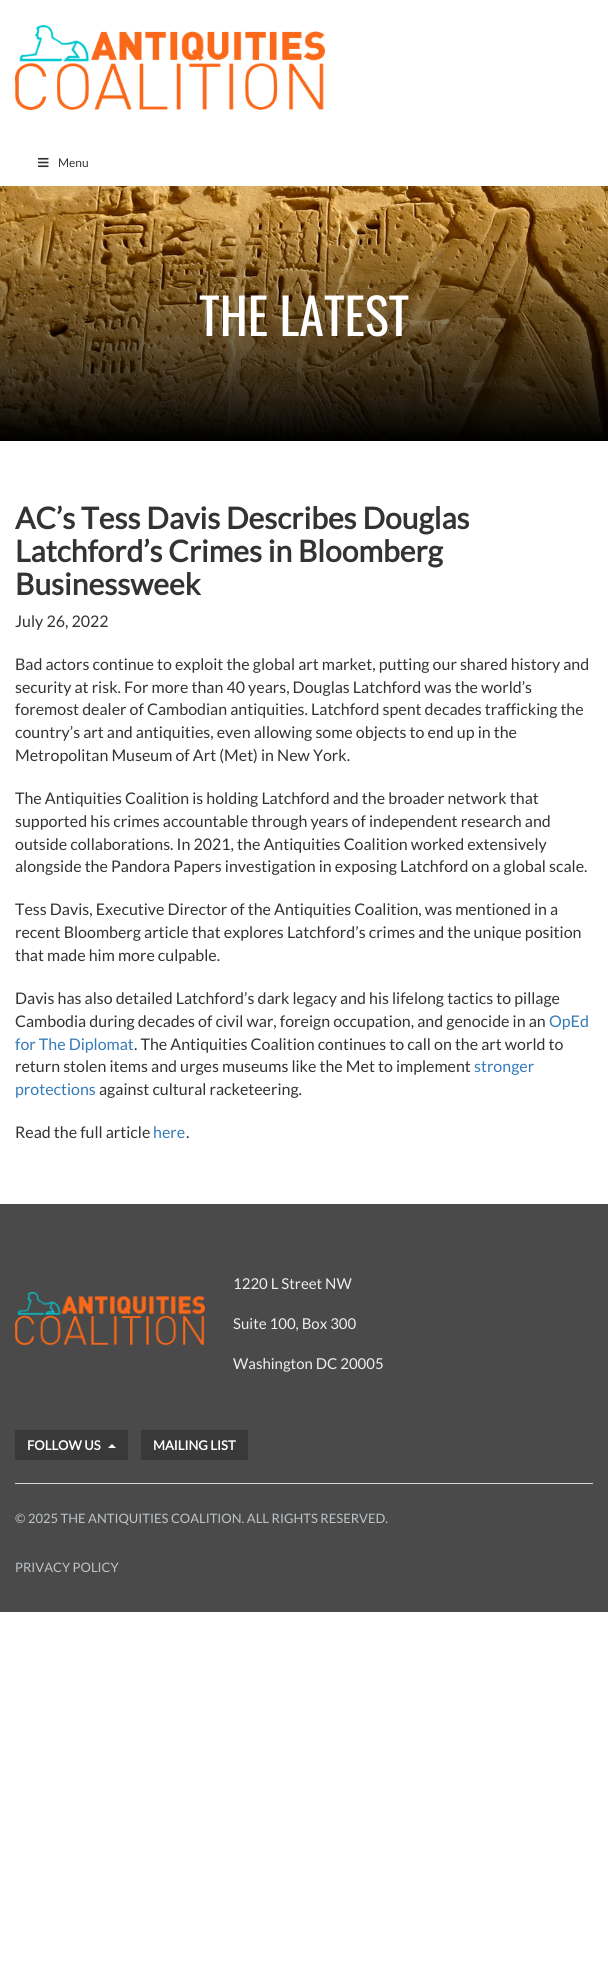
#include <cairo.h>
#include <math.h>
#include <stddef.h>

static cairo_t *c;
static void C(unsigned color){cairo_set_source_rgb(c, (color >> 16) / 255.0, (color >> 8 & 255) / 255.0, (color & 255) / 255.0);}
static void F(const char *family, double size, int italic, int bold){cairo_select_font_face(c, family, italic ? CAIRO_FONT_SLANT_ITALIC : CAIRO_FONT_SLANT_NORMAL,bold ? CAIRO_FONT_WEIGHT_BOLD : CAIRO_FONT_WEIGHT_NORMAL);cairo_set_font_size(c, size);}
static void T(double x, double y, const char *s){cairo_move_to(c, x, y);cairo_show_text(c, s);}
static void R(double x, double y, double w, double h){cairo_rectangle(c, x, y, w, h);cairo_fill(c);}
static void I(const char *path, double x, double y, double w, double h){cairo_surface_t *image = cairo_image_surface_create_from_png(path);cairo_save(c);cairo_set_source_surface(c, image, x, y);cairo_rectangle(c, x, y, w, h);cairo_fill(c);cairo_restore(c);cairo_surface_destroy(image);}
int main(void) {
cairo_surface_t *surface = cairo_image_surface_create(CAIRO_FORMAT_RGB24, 608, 1976);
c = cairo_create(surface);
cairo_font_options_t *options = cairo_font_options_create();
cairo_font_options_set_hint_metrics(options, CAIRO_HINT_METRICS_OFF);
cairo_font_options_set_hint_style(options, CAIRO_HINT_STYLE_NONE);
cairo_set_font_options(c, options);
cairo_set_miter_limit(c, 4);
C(0xffffff);
cairo_paint(c);
I("1.png",15,25,310,85);
I("2.png",38,157,11,11);
F("Lato",12,0,0);
C(0x333333);
T(58,167,"Menu");
I("3.png",0,186,608,255);
F("Oswald",50,0,0);
C(0xffffff);
T(199,336,"THE LATEST");
F("Lato",30,0,1);
C(0x333333);
T(15,529,"AC’s Tess Davis Describes Douglas");
T(15,562,"Latchford’s Crimes in Bloomberg");
T(15,595,"Businessweek");
F("Lato",16,0,0);
T(15,627,"July 26, 2022");
T(15,670,"Bad actors continue to exploit the global art market, putting our shared history and");
T(15,693,"security at risk. For more than 40 years, Douglas Latchford was the world’s");
T(15,715,"foremost dealer of Cambodian antiquities. Latchford spent decades trafficking the");
T(15,738,"country’s art and antiquities, even allowing some objects to end up in the");
T(15,761,"Metropolitan Museum of Art (Met) in New York.");
T(15,804,"The Antiquities Coalition is holding Latchford and the broader network that");
T(15,827,"supported his crimes accountable through years of independent research and");
T(15,850,"outside collaborations. In 2021, the Antiquities Coalition worked extensively");
T(15,872,"alongside the Pandora Papers investigation in exposing Latchford on a global scale.");
T(15,915,"Tess Davis, Executive Director of the Antiquities Coalition, was mentioned in a");
T(15,938,"recent Bloomberg article that explores Latchford’s crimes and the unique position");
T(15,961,"that made him more culpable.");
T(15,1004,"Davis has also detailed Latchford’s dark legacy and his lifelong tactics to pillage");
T(15,1027,"Cambodia during decades of civil war, foreign occupation, and genocide in an");
C(0x337ab7);
T(549,1027,"OpEd");
T(15,1050,"for The Diplomat");
C(0x333333);
T(134,1050,". The Antiquities Coalition continues to call on the art world to");
T(15,1072,"return stolen items and urges museums like the Met to implement");
C(0x337ab7);
T(474,1072,"stronger");
T(15,1095,"protections");
C(0x333333);
T(99,1095,"against cultural racketeering.");
T(15,1138,"Read the full article");
C(0x337ab7);
T(153,1138,"here");
C(0x333333);
T(186,1138,".");
C(0x4a4a4a);
R(0,1204,608,408);
I("4.png",15,1292,190,53);
F("Lato",15,0,0);
C(0xeeeeee);
T(233,1289,"1220 L Street NW");
T(233,1329,"Suite 100, Box 300");
T(233,1369,"Washington DC 20005");
C(0x3a393a);
R(15,1430,113,30);
F("Lato",13,0,1);
C(0xffffff);
T(27,1450,"FOLLOW US");
cairo_new_path(c);
cairo_move_to(c,116,1448);
cairo_line_to(c,108,1448);
cairo_line_to(c,112,1444);
cairo_close_path(c);
cairo_fill(c);
C(0x3a393a);
R(141,1430,107,30);
C(0xffffff);
T(153,1450,"MAILING LIST");
C(0xd8d8d8);
R(15,1483,578,1);
F("Lato",13,0,0);
C(0xbdc3c7);
T(15,1523,"© 2025 THE ANTIQUITIES COALITION. ALL RIGHTS RESERVED.");
T(15,1572,"PRIVACY POLICY");
cairo_surface_write_to_png(surface, "o.png");
cairo_font_options_destroy(options);
cairo_destroy(c);
cairo_surface_destroy(surface);
return 0;
}
